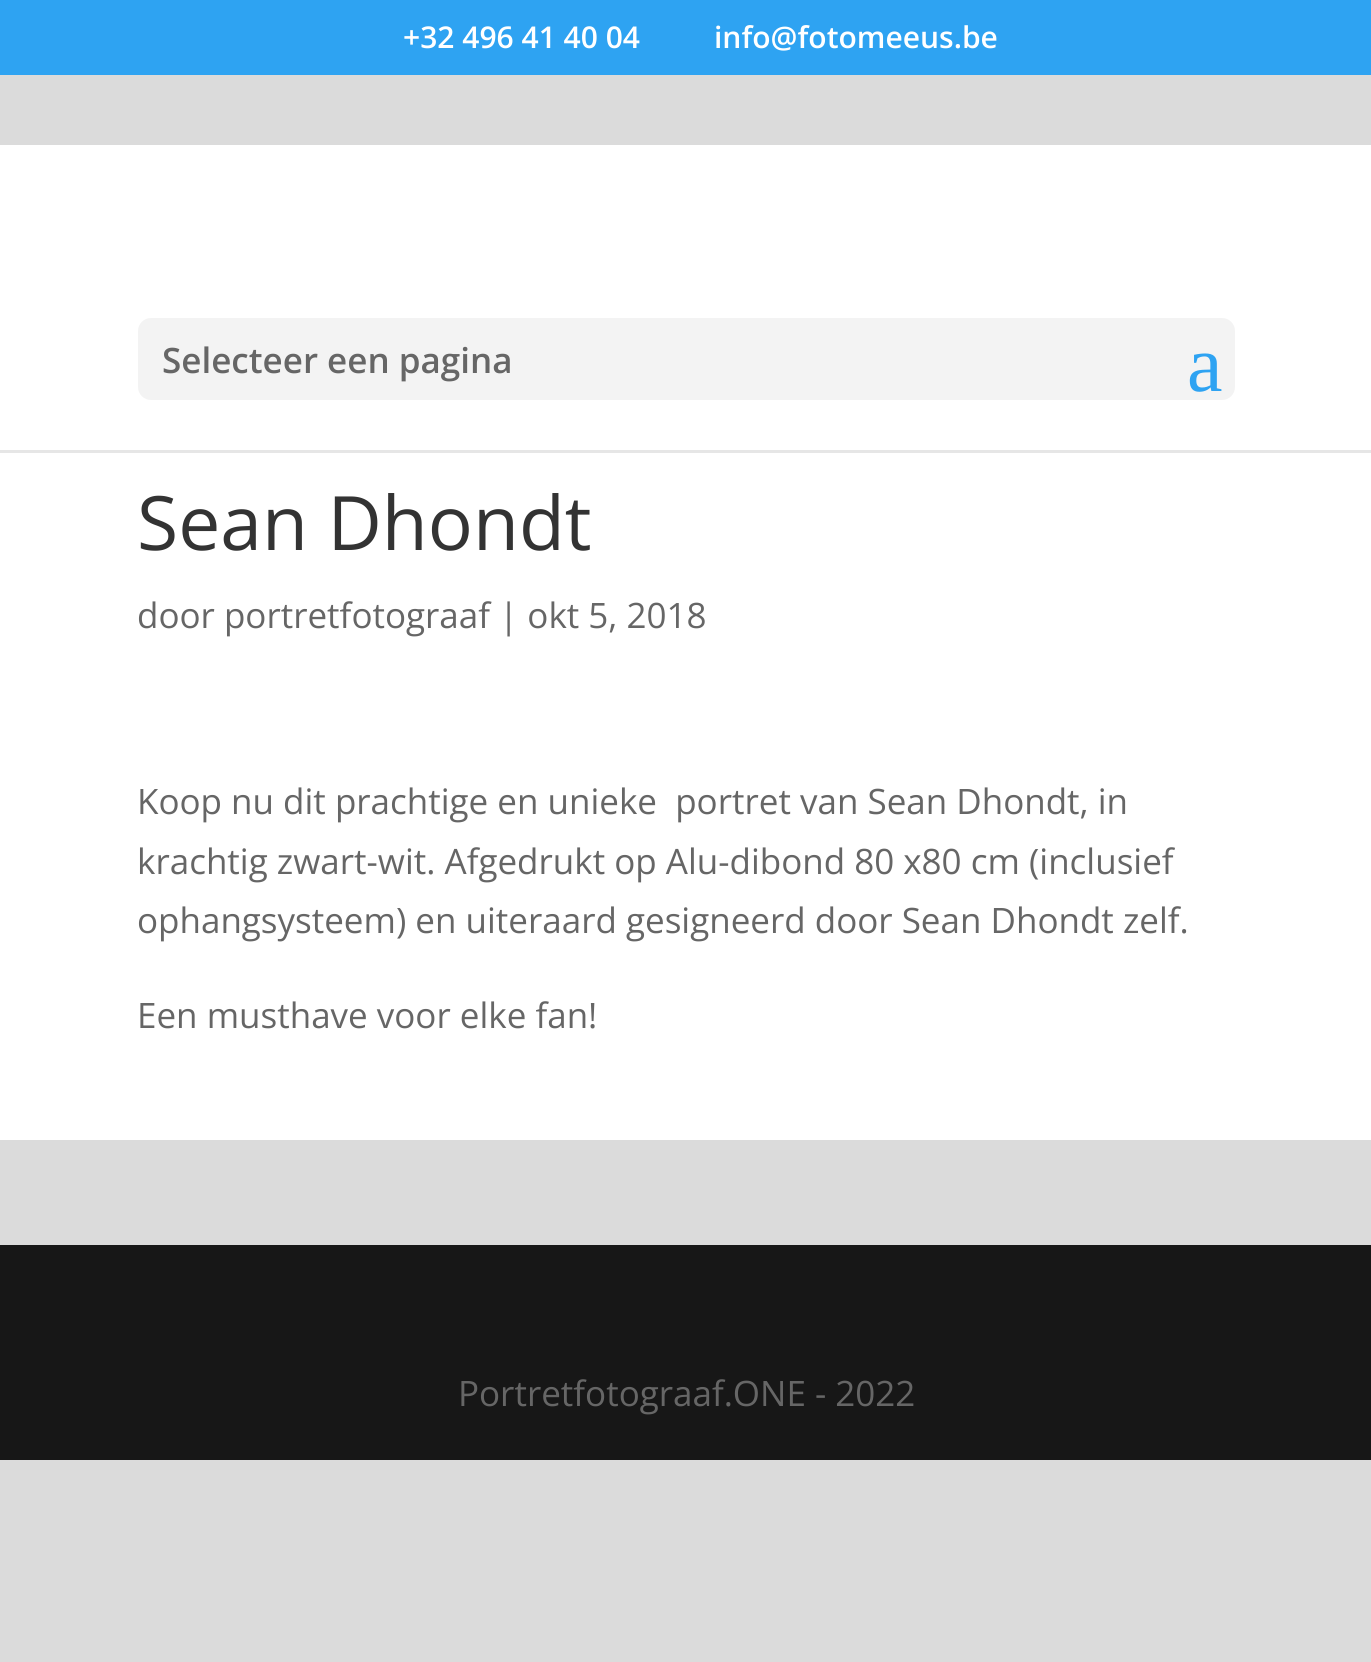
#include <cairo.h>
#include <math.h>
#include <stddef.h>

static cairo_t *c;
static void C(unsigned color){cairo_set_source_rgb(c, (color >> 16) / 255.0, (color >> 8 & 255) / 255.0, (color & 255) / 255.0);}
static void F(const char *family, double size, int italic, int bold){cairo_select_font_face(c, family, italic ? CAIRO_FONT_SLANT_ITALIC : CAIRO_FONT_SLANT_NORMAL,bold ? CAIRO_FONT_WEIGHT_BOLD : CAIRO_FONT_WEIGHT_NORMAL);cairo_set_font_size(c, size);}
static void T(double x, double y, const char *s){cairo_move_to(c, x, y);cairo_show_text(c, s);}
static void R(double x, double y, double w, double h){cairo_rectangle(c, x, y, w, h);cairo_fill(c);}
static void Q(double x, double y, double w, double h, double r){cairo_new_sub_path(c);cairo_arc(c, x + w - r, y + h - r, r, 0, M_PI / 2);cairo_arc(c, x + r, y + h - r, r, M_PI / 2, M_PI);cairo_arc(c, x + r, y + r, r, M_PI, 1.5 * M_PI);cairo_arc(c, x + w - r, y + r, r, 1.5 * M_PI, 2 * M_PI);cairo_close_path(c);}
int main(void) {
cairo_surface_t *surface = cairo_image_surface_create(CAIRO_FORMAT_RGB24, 1371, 1662);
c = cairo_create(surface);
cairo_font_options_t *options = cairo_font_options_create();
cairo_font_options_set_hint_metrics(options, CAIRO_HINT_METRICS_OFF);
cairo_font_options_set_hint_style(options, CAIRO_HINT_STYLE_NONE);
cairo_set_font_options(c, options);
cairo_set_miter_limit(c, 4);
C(0xdbdbdb);
cairo_paint(c);
C(0x2ea3f2);
R(0,0,1371,75);
F("Open Sans SemiBold",30,0,0);
C(0xffffff);
T(403,48,"+32 496 41 40 04");
T(714,48,"info@fotomeeus.be");
C(0xe6e6e6);
cairo_new_path(c);
cairo_move_to(c,0,450);
cairo_line_to(c,0,453);
cairo_line_to(c,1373,453);
cairo_line_to(c,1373,148);
cairo_line_to(c,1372,148);
cairo_line_to(c,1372,450);
cairo_close_path(c);
cairo_fill(c);
C(0xffffff);
R(0,145,1371,305);
C(0xf3f3f3);
Q(138,318,1097,82,13);
cairo_fill(c);
F("Open Sans SemiBold",35,0,0);
C(0x666666);
T(162,373,"Selecteer een pagina");
F("Liberation Serif",80,0,0);
C(0x2ea3f2);
T(1187,391,"a");
C(0xffffff);
R(0,453,1371,687);
F("Open Sans",75,0,0);
C(0x333333);
T(137,550,"Sean Dhondt");
F("Open Sans",35,0,0);
C(0x666666);
T(137,628,"door portretfotograaf | okt 5, 2018");
T(137,814,"Koop nu dit prachtige en unieke  portret van Sean Dhondt, in");
T(137,874,"krachtig zwart-wit. Afgedrukt op Alu-dibond 80 x80 cm (inclusief");
T(137,933,"ophangsysteem) en uiteraard gesigneerd door Sean Dhondt zelf.");
T(137,1028,"Een musthave voor elke fan!");
C(0x171717);
R(0,1245,1371,215);
C(0x666666);
T(458,1406,"Portretfotograaf.ONE - 2022");
cairo_surface_write_to_png(surface, "o.png");
cairo_font_options_destroy(options);
cairo_destroy(c);
cairo_surface_destroy(surface);
return 0;
}
